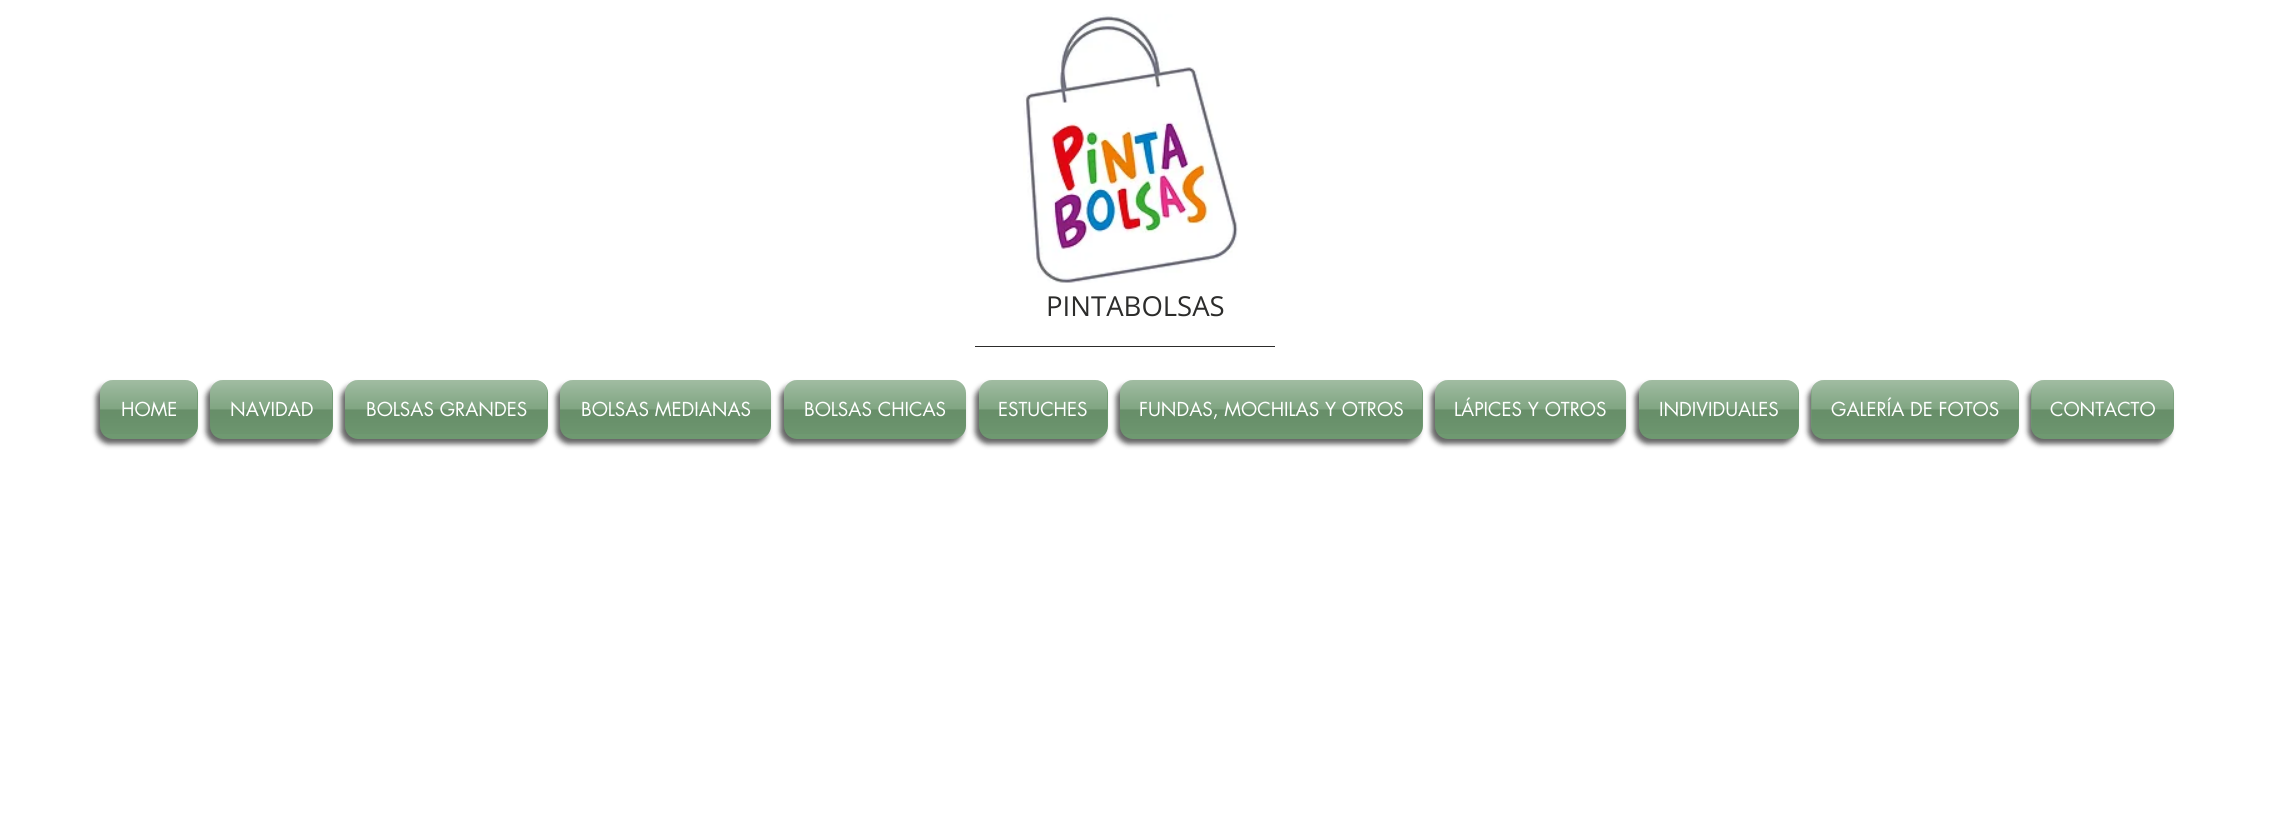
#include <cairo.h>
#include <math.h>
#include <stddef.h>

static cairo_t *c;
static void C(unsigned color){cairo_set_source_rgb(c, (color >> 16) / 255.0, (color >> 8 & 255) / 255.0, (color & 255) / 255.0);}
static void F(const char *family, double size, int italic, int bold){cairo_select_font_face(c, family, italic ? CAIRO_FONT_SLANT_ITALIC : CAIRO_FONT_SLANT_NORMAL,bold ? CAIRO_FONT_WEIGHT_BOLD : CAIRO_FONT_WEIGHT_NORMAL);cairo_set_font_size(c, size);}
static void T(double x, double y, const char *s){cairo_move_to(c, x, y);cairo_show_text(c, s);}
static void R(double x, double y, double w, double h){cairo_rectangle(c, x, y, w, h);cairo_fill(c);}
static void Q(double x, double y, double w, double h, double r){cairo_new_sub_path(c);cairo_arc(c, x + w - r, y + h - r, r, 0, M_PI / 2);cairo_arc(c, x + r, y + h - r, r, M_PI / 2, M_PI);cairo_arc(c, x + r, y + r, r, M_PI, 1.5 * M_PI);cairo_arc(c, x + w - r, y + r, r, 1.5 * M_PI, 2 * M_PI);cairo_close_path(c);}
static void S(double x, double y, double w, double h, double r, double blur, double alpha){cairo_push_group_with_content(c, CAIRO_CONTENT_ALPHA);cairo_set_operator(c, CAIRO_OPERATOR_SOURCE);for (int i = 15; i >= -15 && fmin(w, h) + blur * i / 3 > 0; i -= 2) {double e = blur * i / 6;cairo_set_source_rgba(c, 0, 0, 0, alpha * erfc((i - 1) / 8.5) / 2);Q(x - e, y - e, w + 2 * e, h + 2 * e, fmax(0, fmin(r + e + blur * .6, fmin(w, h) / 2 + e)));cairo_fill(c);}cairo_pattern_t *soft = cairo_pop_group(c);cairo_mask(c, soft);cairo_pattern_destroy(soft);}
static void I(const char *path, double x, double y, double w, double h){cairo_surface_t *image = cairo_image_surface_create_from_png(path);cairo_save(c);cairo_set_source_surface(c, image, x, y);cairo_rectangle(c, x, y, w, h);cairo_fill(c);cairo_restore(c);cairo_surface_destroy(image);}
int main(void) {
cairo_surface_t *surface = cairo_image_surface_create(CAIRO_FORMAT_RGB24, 2273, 836);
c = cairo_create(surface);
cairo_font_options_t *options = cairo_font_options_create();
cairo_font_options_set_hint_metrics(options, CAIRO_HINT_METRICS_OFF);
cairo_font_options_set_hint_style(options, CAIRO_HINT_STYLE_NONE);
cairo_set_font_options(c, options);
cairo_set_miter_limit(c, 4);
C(0xffffff);
cairo_paint(c);
I("1.png",1023,14,215,269);
F("Open Sans",27.5,0,0);
C(0x2c2c2b);
T(1046,316,"PINTABOLSAS");
R(975,346,300,1);
C(0x000000);
S(96,385,98,59,13,2.5,.6);
C(0x6f9971);
Q(100,380,98,59,13);
cairo_fill(c);
I("2.png",100,380,98,54);
F("futura",18.75,0,0);
C(0xffffff);
T(121,416,"HOME");
C(0x000000);
S(206,385,123,59,13,2.5,.6);
C(0x6f9971);
Q(210,380,123,59,13);
cairo_fill(c);
I("3.png",210,380,123,54);
C(0xffffff);
T(230,416,"NAVIDAD");
C(0x000000);
S(341,385,203,59,13,2.5,.6);
C(0x6f9971);
Q(345,380,203,59,13);
cairo_fill(c);
I("4.png",345,380,203,54);
C(0xffffff);
T(366,416,"BOLSAS GRANDES");
C(0x000000);
S(556,385,212,59,13,2.5,.6);
C(0x6f9971);
Q(560,380,211,59,13);
cairo_fill(c);
I("5.png",560,380,211,54);
C(0xffffff);
T(581,416,"BOLSAS MEDIANAS");
C(0x000000);
S(780,385,183,59,13,2.5,.6);
C(0x6f9971);
Q(784,380,182,59,13);
cairo_fill(c);
I("6.png",784,380,182,54);
C(0xffffff);
T(804,416,"BOLSAS CHICAS");
C(0x000000);
S(975,385,129,59,13,2.5,.6);
C(0x6f9971);
Q(979,380,129,59,13);
cairo_fill(c);
I("7.png",979,380,129,54);
C(0xffffff);
T(998,416,"ESTUCHES");
C(0x000000);
S(1116,385,303,59,13,2.5,.6);
C(0x6f9971);
Q(1120,380,303,59,13);
cairo_fill(c);
I("8.png",1120,380,303,54);
C(0xffffff);
T(1139,416,"FUNDAS, MOCHILAS Y OTROS");
C(0x000000);
S(1431,385,192,59,13,2.5,.6);
C(0x6f9971);
Q(1435,380,191,59,13);
cairo_fill(c);
I("9.png",1435,380,191,54);
C(0xffffff);
T(1454,416,"LÁPICES Y OTROS");
C(0x000000);
S(1635,385,160,59,13,2.5,.6);
C(0x6f9971);
Q(1639,380,160,59,13);
cairo_fill(c);
I("10.png",1639,380,160,54);
C(0xffffff);
T(1659,416,"INDIVIDUALES");
C(0x000000);
S(1808,385,207,59,13,2.5,.6);
C(0x6f9971);
Q(1811,380,208,59,13);
cairo_fill(c);
I("11.png",1811,380,208,54);
C(0xffffff);
T(1831,416,"GALERÍA DE FOTOS");
C(0x000000);
S(2028,385,142,59,13,2.5,.6);
C(0x6f9971);
Q(2031,380,143,59,13);
cairo_fill(c);
I("12.png",2031,380,143,54);
C(0xffffff);
T(2050,416,"CONTACTO");
cairo_surface_write_to_png(surface, "o.png");
cairo_font_options_destroy(options);
cairo_destroy(c);
cairo_surface_destroy(surface);
return 0;
}
